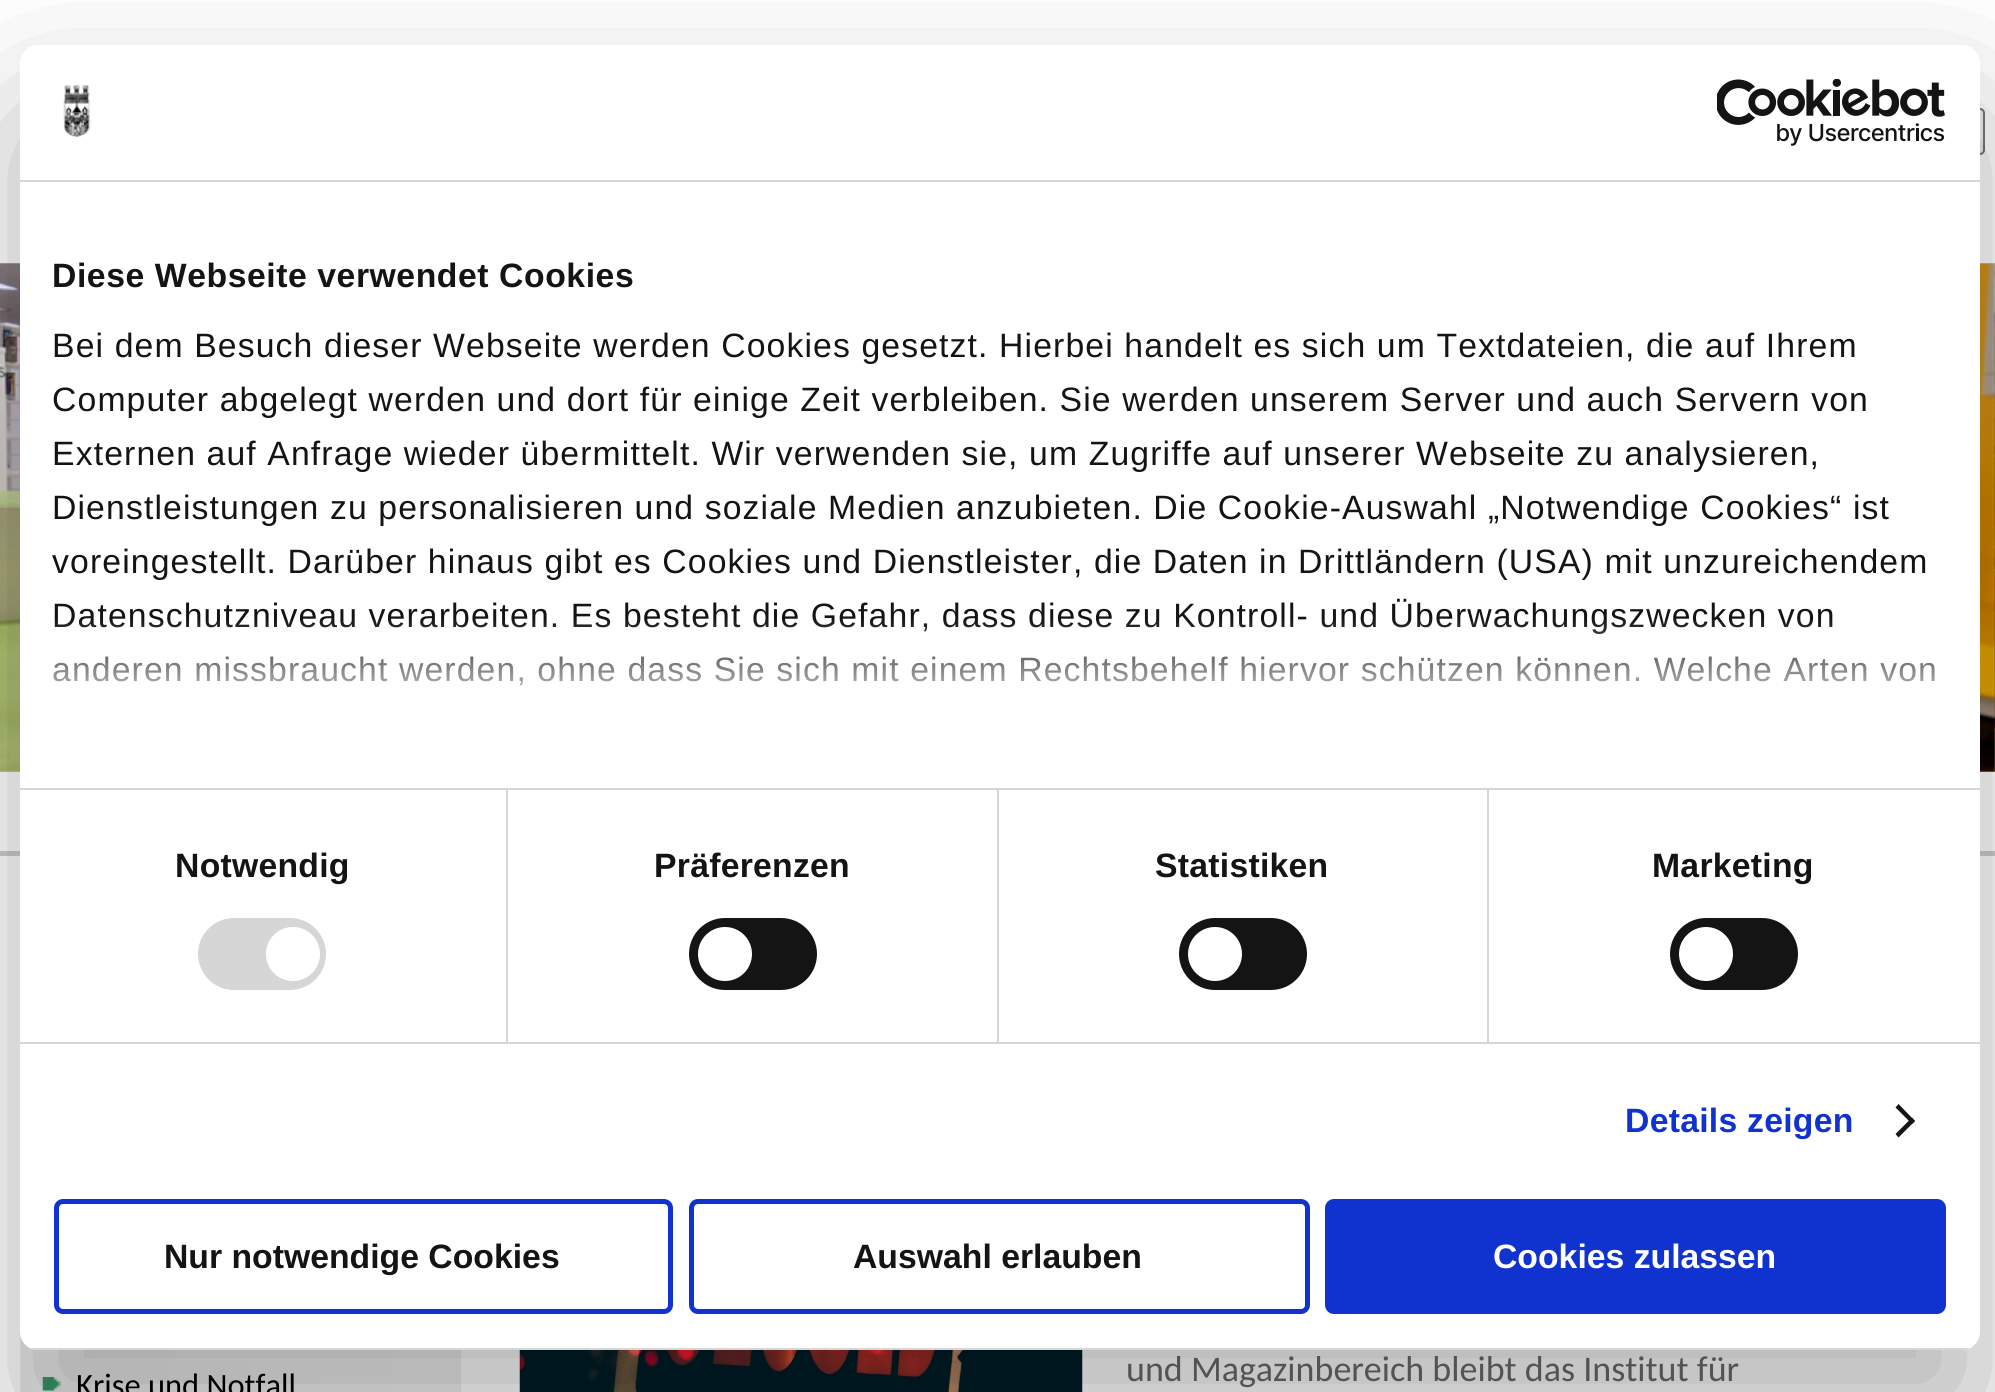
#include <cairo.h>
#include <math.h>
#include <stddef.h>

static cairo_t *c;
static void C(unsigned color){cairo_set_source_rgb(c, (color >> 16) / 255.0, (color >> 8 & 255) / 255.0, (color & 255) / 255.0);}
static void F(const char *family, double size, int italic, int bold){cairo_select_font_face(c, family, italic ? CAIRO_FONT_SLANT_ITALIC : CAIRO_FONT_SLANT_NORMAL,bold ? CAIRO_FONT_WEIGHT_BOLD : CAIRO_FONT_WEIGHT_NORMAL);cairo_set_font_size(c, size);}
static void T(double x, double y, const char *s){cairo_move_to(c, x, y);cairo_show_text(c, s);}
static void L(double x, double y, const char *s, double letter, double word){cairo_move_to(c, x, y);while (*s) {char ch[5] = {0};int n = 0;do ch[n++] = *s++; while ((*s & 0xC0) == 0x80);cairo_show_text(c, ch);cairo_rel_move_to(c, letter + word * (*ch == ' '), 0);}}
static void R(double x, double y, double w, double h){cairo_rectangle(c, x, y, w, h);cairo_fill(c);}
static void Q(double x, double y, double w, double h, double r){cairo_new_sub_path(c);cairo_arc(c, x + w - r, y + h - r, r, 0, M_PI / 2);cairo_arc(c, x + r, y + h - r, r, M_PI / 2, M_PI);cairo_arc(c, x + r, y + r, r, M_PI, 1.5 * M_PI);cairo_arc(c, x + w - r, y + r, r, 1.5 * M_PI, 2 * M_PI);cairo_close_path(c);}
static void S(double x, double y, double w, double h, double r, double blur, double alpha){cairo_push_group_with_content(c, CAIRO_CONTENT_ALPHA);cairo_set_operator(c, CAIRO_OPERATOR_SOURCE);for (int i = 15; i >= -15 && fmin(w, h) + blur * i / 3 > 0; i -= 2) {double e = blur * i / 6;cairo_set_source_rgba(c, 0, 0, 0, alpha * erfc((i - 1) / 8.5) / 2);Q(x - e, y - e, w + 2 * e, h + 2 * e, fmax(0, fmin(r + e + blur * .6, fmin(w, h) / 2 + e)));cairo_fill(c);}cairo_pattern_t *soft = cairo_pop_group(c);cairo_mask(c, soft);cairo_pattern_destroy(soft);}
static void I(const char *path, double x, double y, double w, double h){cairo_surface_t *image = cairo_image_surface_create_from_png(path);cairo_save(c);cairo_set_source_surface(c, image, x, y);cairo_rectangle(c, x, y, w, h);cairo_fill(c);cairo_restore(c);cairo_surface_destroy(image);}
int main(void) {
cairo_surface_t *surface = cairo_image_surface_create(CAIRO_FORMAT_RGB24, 1995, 1392);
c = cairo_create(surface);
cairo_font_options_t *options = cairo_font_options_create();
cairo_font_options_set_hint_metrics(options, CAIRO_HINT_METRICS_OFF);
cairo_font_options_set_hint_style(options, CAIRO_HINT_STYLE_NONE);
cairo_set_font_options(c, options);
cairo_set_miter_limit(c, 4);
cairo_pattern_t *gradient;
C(0xffffff);
cairo_paint(c);
C(0xefefef);
Q(1848,109,136,45,4);
cairo_fill_preserve(c);
C(0x767676);
cairo_stroke(c);
I("3.png",0,263,1995,509);
C(0xcccccc);
R(0,851,1995,5);
I("4.png",20,1332,442,60);
I("5.png",42,1377,19,14);
I("6.png",519,1350,564,42);
C(0x000000);
S(20,117,1960,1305,18,76.5,.3);
C(0xffffff);
Q(20,45,1960,1305,18);
cairo_fill(c);
C(0xd6d6d6);
R(20,180,1960,2);
I("1.png",63,85,28,52);
I("2.png",1717,79,228,67);
R(20,788,1960,2);
F("Liberation Sans",33.75,0,1);
C(0x141414);
L(52,287,"Diese Webseite verwendet Cookies",.55,0);
F("Liberation Sans",33.75,0,0);
L(52,357,"Bei dem Besuch dieser Webseite werden Cookies gesetzt. Hierbei handelt es sich um Textdateien, die auf Ihrem",1.12,0);
L(52,411,"Computer abgelegt werden und dort für einige Zeit verbleiben. Sie werden unserem Server und auch Servern von",1.12,0);
L(52,465,"Externen auf Anfrage wieder übermittelt. Wir verwenden sie, um Zugriffe auf unserer Webseite zu analysieren,",1.12,0);
L(52,519,"Dienstleistungen zu personalisieren und soziale Medien anzubieten. Die Cookie-Auswahl „Notwendige Cookies“ ist",1.12,0);
L(52,573,"voreingestellt. Darüber hinaus gibt es Cookies und Dienstleister, die Daten in Drittländern (USA) mit unzureichendem",1.12,0);
L(52,627,"Datenschutzniveau verarbeiten. Es besteht die Gefahr, dass diese zu Kontroll- und Überwachungszwecken von",1.12,0);
L(52,681,"anderen missbraucht werden, ohne dass Sie sich mit einem Rechtsbehelf hiervor schützen können. Welche Arten von",1.12,0);
gradient = cairo_pattern_create_linear(984,787,984,618);
cairo_pattern_add_color_stop_rgba(gradient,0,1,1,1,1);
cairo_pattern_add_color_stop_rgba(gradient,.5,1,1,1,.8);
cairo_pattern_add_color_stop_rgba(gradient,1,1,1,1,0);
cairo_set_source(c,gradient);
cairo_pattern_destroy(gradient);
R(53,620,1882,66);
C(0xd6d6d6);
R(20,1042,1960,2);
R(506,790,2,252);
F("Liberation Sans",33.75,0,1);
C(0x141414);
L(175,877,"Notwendig",.25,0);
C(0xd6d6d6);
Q(198,918,128,72,36);
cairo_fill(c);
C(0xffffff);
cairo_arc(c,293,954,27,0,2 * M_PI);
cairo_fill(c);
C(0xd6d6d6);
R(997,790,2,252);
C(0x141414);
L(654,877,"Präferenzen",.25,0);
Q(689,918,128,72,36);
cairo_fill(c);
C(0xffffff);
cairo_arc(c,725,954,27,0,2 * M_PI);
cairo_fill(c);
C(0xd6d6d6);
R(1487,790,2,252);
C(0x141414);
L(1155,877,"Statistiken",.25,0);
Q(1179,918,128,72,36);
cairo_fill(c);
C(0xffffff);
cairo_arc(c,1215,954,27,0,2 * M_PI);
cairo_fill(c);
C(0x141414);
L(1652,877,"Marketing",.25,0);
Q(1670,918,128,72,36);
cairo_fill(c);
C(0xffffff);
cairo_arc(c,1706,954,27,0,2 * M_PI);
cairo_fill(c);
C(0x1032cf);
L(1625,1132,"Details zeigen",.25,0);
C(0x141414);
cairo_new_path(c);
cairo_move_to(c,1898.5,1104);
cairo_line_to(c,1915,1121);
cairo_line_to(c,1912,1124);
cairo_line_to(c,1895.5,1107.5);
cairo_close_path(c);
cairo_fill(c);
cairo_new_path(c);
cairo_move_to(c,1912,1117.5);
cairo_line_to(c,1915,1121);
cairo_line_to(c,1898.5,1137.5);
cairo_line_to(c,1895.5,1134);
cairo_close_path(c);
cairo_fill(c);
cairo_save(c);
Q(20,45,1960,1305,18);
cairo_clip(c);
C(0xd6d6d6);
R(30,1348,1940,2);
cairo_restore(c);
Q(56.5,1201.5,614,110,6.5);
C(0x1032cf);
cairo_set_line_width(c,5);
cairo_stroke(c);
C(0x141414);
T(164,1268,"Nur notwendige Cookies");
Q(691.5,1201.5,616,110,6.5);
C(0x1032cf);
cairo_stroke(c);
C(0x141414);
T(853,1268,"Auswahl erlauben");
C(0x1032cf);
Q(1327.5,1201.5,616,110,6.5);
cairo_fill_preserve(c);
cairo_stroke(c);
C(0xffffff);
T(1493,1268,"Cookies zulassen");
F("Carlito",32.5,0,0);
C(0x000000);
T(76,1396,"Krise und Notfall");
F("Carlito",36,0,0);
C(0x535353);
T(1126,1381,"und Magazinbereich bleibt das Institut für");
cairo_surface_write_to_png(surface, "o.png");
cairo_font_options_destroy(options);
cairo_destroy(c);
cairo_surface_destroy(surface);
return 0;
}
